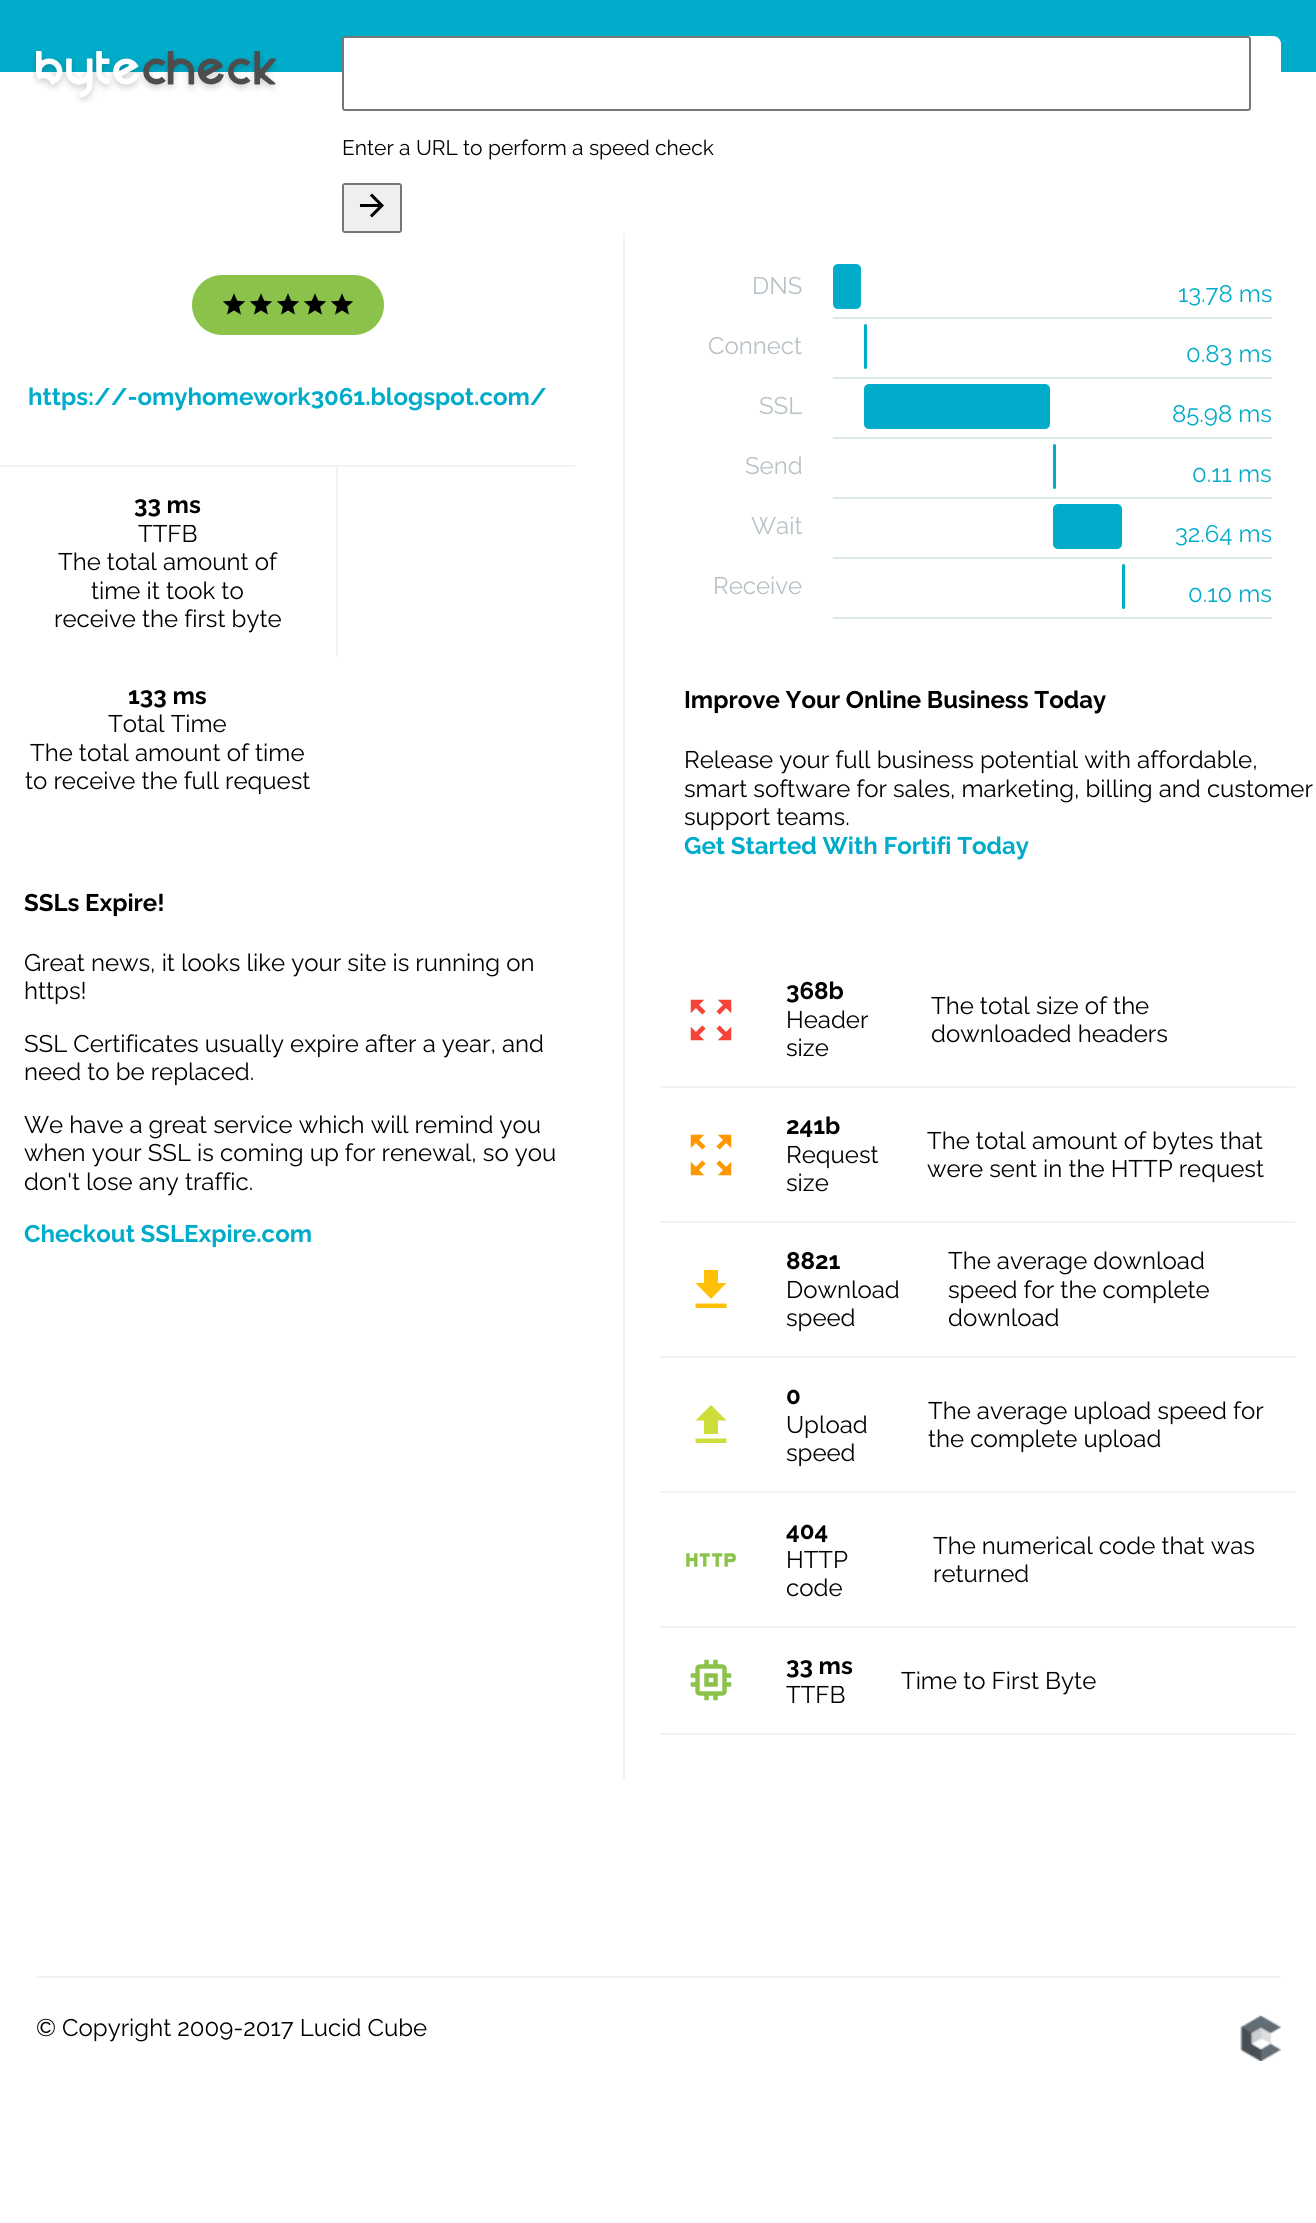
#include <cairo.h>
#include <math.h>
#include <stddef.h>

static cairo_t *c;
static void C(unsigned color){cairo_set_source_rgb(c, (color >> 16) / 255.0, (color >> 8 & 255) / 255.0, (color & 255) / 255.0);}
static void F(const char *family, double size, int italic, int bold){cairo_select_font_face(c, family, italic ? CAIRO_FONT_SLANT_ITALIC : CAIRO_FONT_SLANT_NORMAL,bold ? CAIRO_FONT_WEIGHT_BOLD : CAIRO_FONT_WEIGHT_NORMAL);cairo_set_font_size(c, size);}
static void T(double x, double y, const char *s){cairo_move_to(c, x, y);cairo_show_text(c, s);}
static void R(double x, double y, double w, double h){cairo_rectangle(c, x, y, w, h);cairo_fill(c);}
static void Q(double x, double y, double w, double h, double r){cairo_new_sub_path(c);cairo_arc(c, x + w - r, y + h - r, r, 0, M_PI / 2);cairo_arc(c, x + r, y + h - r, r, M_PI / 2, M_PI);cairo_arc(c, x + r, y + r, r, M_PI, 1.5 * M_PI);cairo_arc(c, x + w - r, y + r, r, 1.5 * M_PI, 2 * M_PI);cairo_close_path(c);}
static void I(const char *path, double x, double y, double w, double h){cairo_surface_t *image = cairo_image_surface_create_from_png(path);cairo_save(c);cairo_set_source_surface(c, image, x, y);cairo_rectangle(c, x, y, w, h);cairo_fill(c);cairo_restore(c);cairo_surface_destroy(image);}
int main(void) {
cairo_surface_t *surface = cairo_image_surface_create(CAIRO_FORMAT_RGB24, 1316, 2223);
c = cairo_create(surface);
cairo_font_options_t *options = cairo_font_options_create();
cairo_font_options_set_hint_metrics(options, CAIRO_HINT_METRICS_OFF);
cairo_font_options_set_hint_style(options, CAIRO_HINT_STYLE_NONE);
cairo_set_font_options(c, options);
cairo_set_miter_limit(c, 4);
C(0xffffff);
cairo_paint(c);
C(0x00acc9);
R(0,0,1316,72);
I("1.png",32,51,246,52);
C(0xffffff);
Q(342,36,939,197,8);
cairo_fill(c);
Q(343,37,907,73,2);
cairo_fill_preserve(c);
C(0x767676);
cairo_stroke(c);
F("Raleway",21,0,0);
C(0x000000);
T(342,155,"Enter a URL to perform a speed check");
C(0xefefef);
Q(343,184,58,48,2);
cairo_fill_preserve(c);
C(0x767676);
cairo_stroke(c);
I("2.png",359,193,25,25);
C(0xf0f2f3);
R(623,233,2,1546);
C(0x8bc34a);
Q(192,275,192,60,30);
cairo_fill(c);
I("3.png",222,293,24,22);
I("3.png",249,293,24,22);
I("3.png",276,293,24,22);
I("3.png",303,293,24,22);
I("3.png",330,293,24,22);
F("Raleway",24,0,1);
C(0x00acc9);
T(28,405,"https://-omyhomework3061.blogspot.com/");
C(0xf0f2f3);
R(0,465,575,2);
R(336,467,2,190);
C(0x000000);
T(134,513,"33 ms");
F("Raleway",24,0,0);
T(138,542,"TTFB");
T(58,570,"The total amount of");
T(91,599,"time it took to");
T(54,627,"receive the first byte");
F("Raleway",24,0,1);
T(128,704,"133 ms");
F("Raleway",24,0,0);
T(108,732,"Total Time");
T(30,761,"The total amount of time");
T(25,789,"to receive the full request");
F("Raleway",24,0,1);
T(24,911,"SSLs Expire!");
F("Raleway",24,0,0);
T(24,971,"Great news, it looks like your site is running on");
T(24,999,"https!");
T(24,1052,"SSL Certificates usually expire after a year, and");
T(24,1080,"need to be replaced.");
T(24,1133,"We have a great service which will remind you");
T(24,1161,"when your SSL is coming up for renewal, so you");
T(24,1190,"don't lose any traffic.");
F("Raleway",24,0,1);
C(0x00acc9);
T(24,1242,"Checkout SSLExpire.com");
F("Raleway",24,0,0);
C(0xb7c1c6);
T(752,294,"DNS");
C(0xdde7ec);
R(833,317,439,2);
C(0x00acc9);
Q(833,264,28,45,5);
cairo_fill(c);
T(1178,302,"13.78 ms");
C(0xb7c1c6);
T(708,354,"Connect");
C(0xdde7ec);
R(833,377,439,2);
C(0x00acc9);
Q(864,324,3,45,1.5);
cairo_fill(c);
T(1186,362,"0.83 ms");
C(0xb7c1c6);
T(759,414,"SSL");
C(0xdde7ec);
R(833,437,439,2);
C(0x00acc9);
Q(864,384,186,45,5);
cairo_fill(c);
T(1172,422,"85.98 ms");
C(0xb7c1c6);
T(745,474,"Send");
C(0xdde7ec);
R(833,497,439,2);
C(0x00acc9);
Q(1053,444,3,45,1.5);
cairo_fill(c);
T(1192,482,"0.11 ms");
C(0xb7c1c6);
T(751,534,"Wait");
C(0xdde7ec);
R(833,557,439,2);
C(0x00acc9);
Q(1053,504,69,45,5);
cairo_fill(c);
T(1175,542,"32.64 ms");
C(0xb7c1c6);
T(713,594,"Receive");
C(0xdde7ec);
R(833,617,439,2);
C(0x00acc9);
Q(1122,564,3,45,1.5);
cairo_fill(c);
T(1188,602,"0.10 ms");
F("Raleway",24,0,1);
C(0x000000);
T(684,708,"Improve Your Online Business Today");
F("Raleway",24,0,0);
T(684,768,"Release your full business potential with affordable,");
T(684,797,"smart software for sales, marketing, billing and customer");
T(684,825,"support teams.");
F("Raleway",24,0,1);
C(0x00acc9);
T(684,854,"Get Started With Fortifi Today");
C(0xf0f2f3);
R(660,1086,635,2);
I("4.png",690,999,42,42);
C(0x000000);
T(786,999,"368b");
F("Raleway",24,0,0);
T(786,1028,"Header");
T(786,1056,"size");
T(931,1014,"The total size of the");
T(931,1042,"downloaded headers");
C(0xf0f2f3);
R(660,1221,635,2);
I("5.png",690,1134,42,42);
F("Raleway",24,0,1);
C(0x000000);
T(786,1134,"241b");
F("Raleway",24,0,0);
T(786,1163,"Request");
T(786,1191,"size");
T(927,1149,"The total amount of bytes that");
T(927,1177,"were sent in the HTTP request");
C(0xf0f2f3);
R(660,1356,635,2);
C(0xffc108);
cairo_new_path(c);
cairo_move_to(c,695.5,1303.5);
cairo_line_to(c,726.5,1303.5);
cairo_line_to(c,726.5,1308);
cairo_line_to(c,695.5,1308);
cairo_close_path(c);
cairo_move_to(c,726.5,1283);
cairo_line_to(c,711,1299);
cairo_line_to(c,695.5,1283);
cairo_line_to(c,704,1283);
cairo_line_to(c,704,1270);
cairo_line_to(c,718,1270);
cairo_line_to(c,718,1283);
cairo_close_path(c);
cairo_fill(c);
F("Raleway",24,0,1);
C(0x000000);
T(786,1269,"8821");
F("Raleway",24,0,0);
T(786,1298,"Download");
T(786,1326,"speed");
T(948,1269,"The average download");
T(948,1298,"speed for the complete");
T(948,1326,"download");
C(0xf0f2f3);
R(660,1491,635,2);
C(0xcddc39);
cairo_new_path(c);
cairo_move_to(c,695.5,1438.5);
cairo_line_to(c,726.5,1438.5);
cairo_line_to(c,726.5,1443);
cairo_line_to(c,695.5,1443);
cairo_close_path(c);
cairo_move_to(c,704,1434);
cairo_line_to(c,704,1420.5);
cairo_line_to(c,695.5,1420.5);
cairo_line_to(c,711,1405);
cairo_line_to(c,726.5,1420.5);
cairo_line_to(c,718,1420.5);
cairo_line_to(c,718,1434);
cairo_close_path(c);
cairo_fill(c);
F("Raleway",24,0,1);
C(0x000000);
T(786,1404,"0");
F("Raleway",24,0,0);
T(786,1433,"Upload");
T(786,1461,"speed");
T(928,1419,"The average upload speed for");
T(928,1447,"the complete upload");
C(0xf0f2f3);
R(660,1626,635,2);
I("6.png",686,1553,50,14);
F("Raleway",24,0,1);
C(0x000000);
T(786,1539,"404");
F("Raleway",24,0,0);
T(786,1568,"HTTP");
T(786,1596,"code");
T(933,1554,"The numerical code that was");
T(933,1582,"returned");
C(0xf0f2f3);
R(660,1733,635,2);
I("7.png",690,1659,42,42);
F("Raleway",24,0,1);
C(0x000000);
T(786,1674,"33 ms");
F("Raleway",24,0,0);
T(786,1703,"TTFB");
T(901,1689,"Time to First Byte");
C(0xf0f2f3);
R(36,1976,1245,2);
C(0x000000);
T(36,2036,"© Copyright 2009-2017 Lucid Cube");
I("8.png",1240,2015,41,46);
cairo_surface_write_to_png(surface, "o.png");
cairo_font_options_destroy(options);
cairo_destroy(c);
cairo_surface_destroy(surface);
return 0;
}
